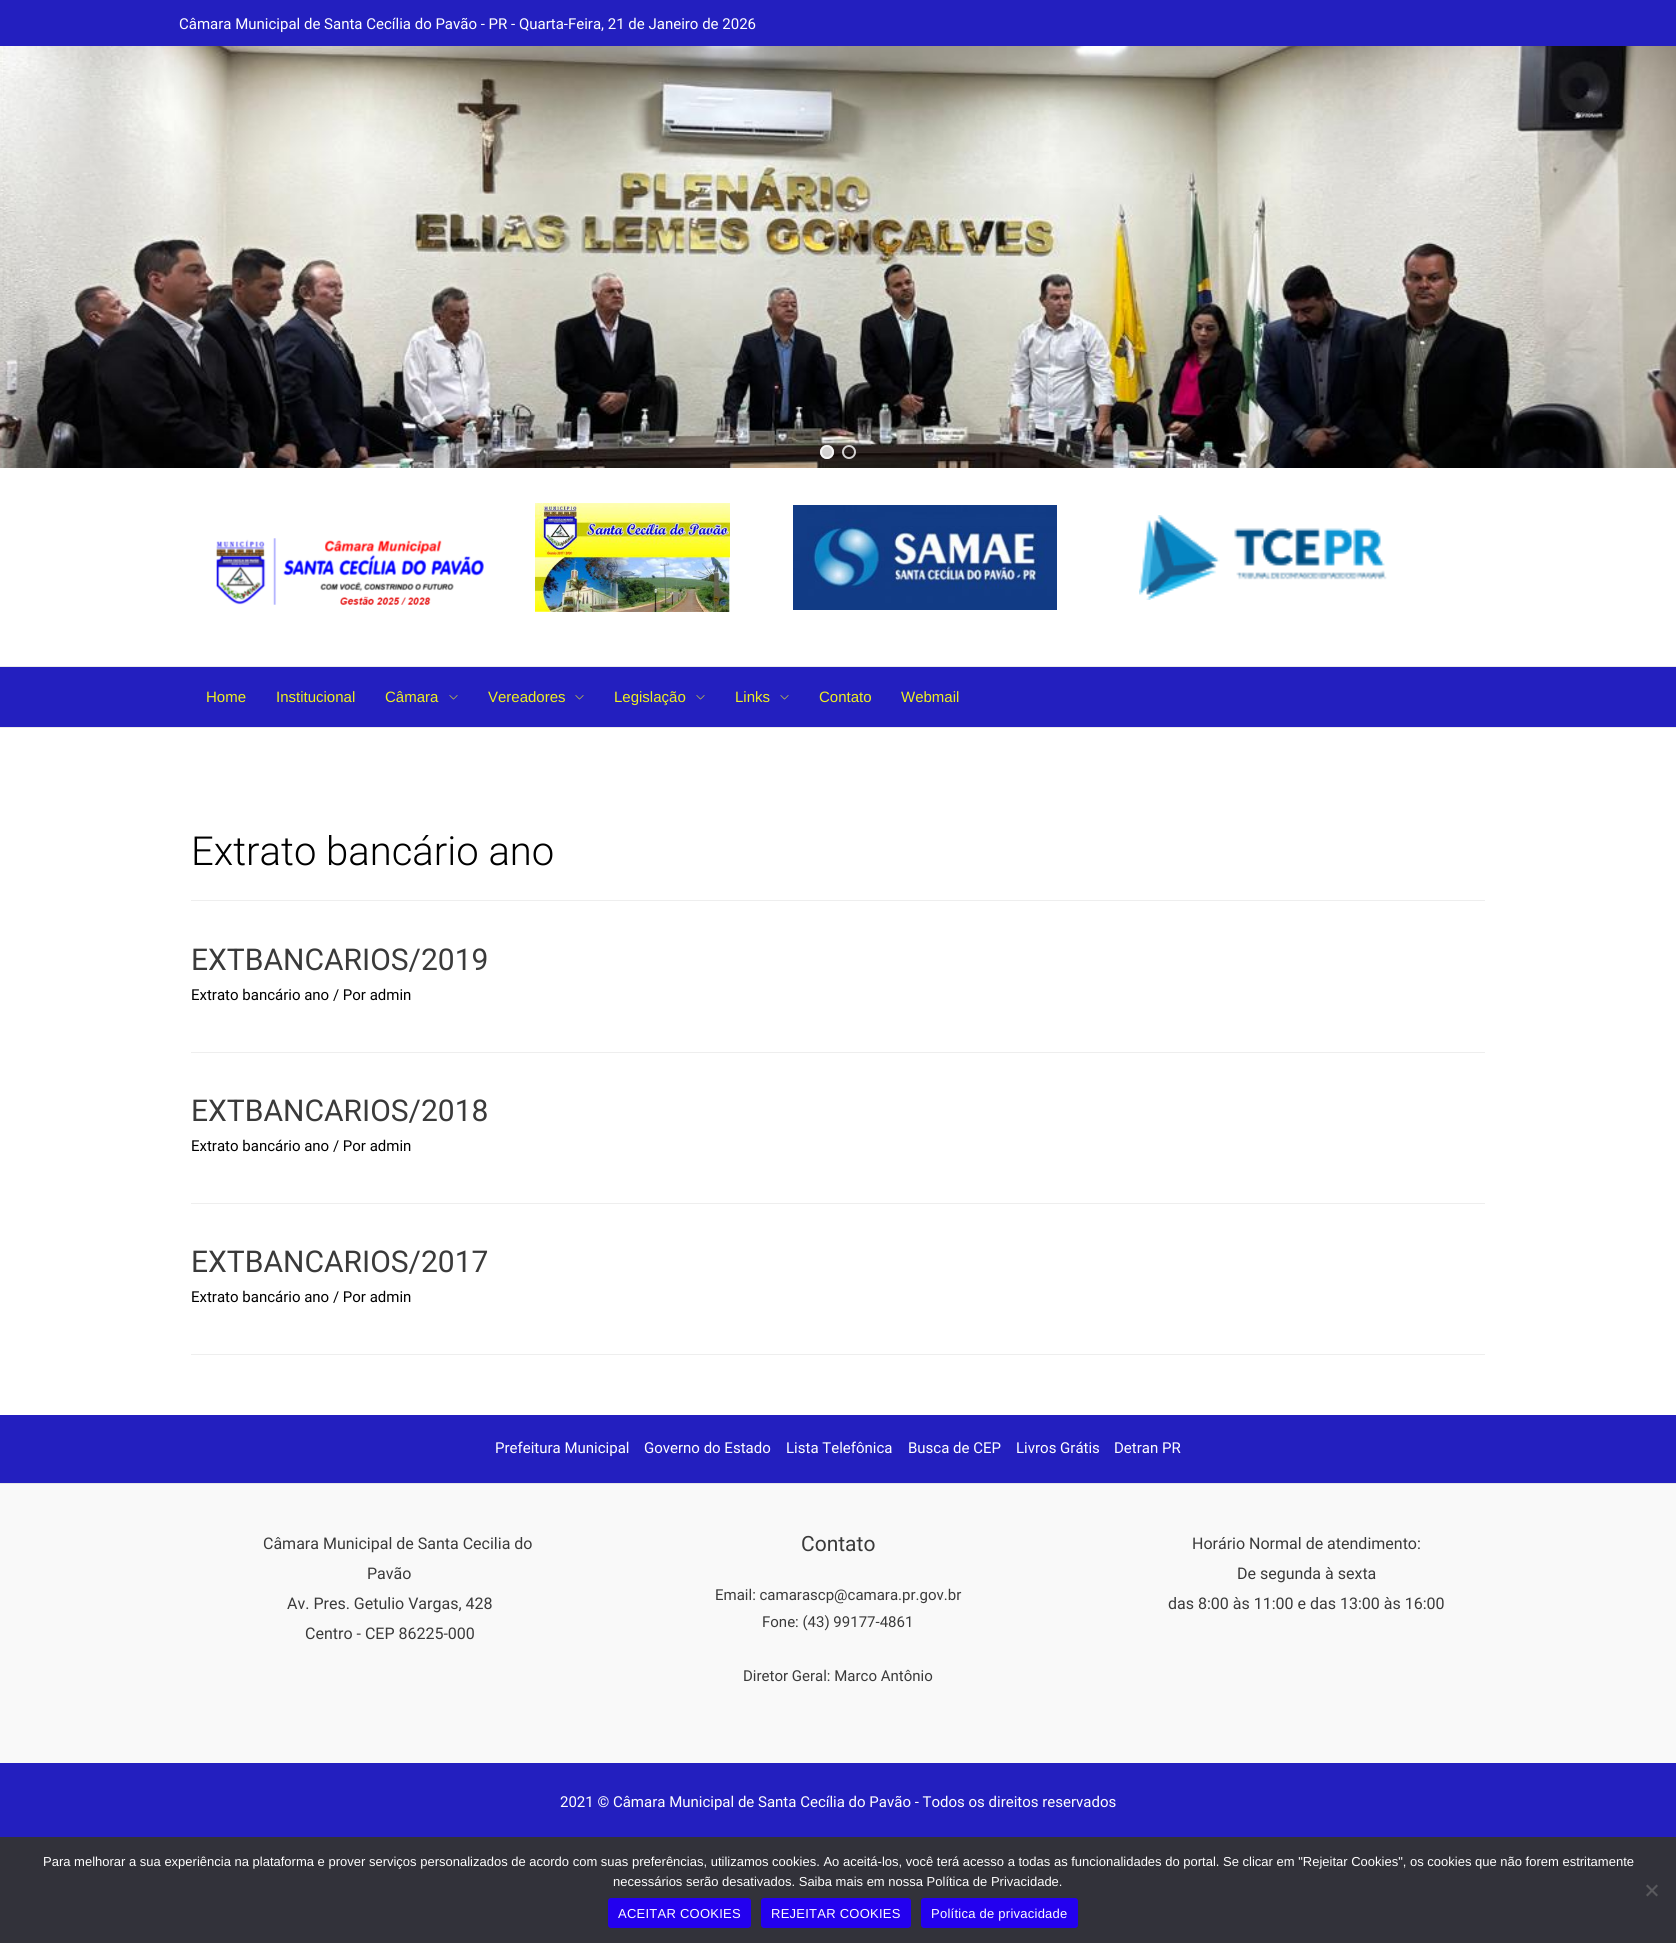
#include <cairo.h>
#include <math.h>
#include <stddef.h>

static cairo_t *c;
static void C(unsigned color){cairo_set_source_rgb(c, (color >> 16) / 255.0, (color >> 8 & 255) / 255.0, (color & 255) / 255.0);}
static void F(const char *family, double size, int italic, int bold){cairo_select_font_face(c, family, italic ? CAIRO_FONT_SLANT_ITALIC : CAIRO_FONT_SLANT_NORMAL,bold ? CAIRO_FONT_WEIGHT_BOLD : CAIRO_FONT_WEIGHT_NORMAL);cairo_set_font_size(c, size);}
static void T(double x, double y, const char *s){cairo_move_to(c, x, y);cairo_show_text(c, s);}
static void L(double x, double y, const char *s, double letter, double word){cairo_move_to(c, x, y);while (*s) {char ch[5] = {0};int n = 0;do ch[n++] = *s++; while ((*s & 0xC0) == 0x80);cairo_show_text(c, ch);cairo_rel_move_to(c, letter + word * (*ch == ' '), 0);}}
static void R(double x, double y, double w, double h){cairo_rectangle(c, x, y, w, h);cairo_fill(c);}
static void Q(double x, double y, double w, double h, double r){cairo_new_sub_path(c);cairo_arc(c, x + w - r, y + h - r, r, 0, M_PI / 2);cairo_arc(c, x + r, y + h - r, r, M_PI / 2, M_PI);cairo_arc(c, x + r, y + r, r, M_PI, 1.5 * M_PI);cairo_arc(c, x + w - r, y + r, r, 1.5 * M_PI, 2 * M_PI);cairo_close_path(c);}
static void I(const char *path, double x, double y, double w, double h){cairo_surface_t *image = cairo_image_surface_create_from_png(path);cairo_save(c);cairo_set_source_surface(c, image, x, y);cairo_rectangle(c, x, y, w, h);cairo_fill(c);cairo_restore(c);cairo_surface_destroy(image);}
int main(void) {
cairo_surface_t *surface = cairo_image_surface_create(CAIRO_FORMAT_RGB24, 1676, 1943);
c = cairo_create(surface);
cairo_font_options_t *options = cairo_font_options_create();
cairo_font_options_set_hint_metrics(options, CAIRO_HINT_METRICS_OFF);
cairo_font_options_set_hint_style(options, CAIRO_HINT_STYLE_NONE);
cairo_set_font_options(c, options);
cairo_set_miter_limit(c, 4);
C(0xffffff);
cairo_paint(c);
C(0x231fbf);
R(0,0,1676,46);
F("Roboto",15,0,0);
C(0xffffff);
T(179,29,"Câmara Municipal de Santa Cecília do Pavão - PR - Quarta-Feira, 21 de Janeiro de 2026");
C(0xeaeaea);
R(0,666,1676,1);
I("1.png",0,46,1676,422);
cairo_set_source_rgba(c,1,1,1,0.8);
cairo_arc(c,827,452,7,0,2 * M_PI);
cairo_fill(c);
cairo_arc(c,827,452,6,0,2 * M_PI);
cairo_stroke(c);
cairo_arc(c,849,452,6,0,2 * M_PI);
cairo_stroke(c);
I("2.png",216,538,268,67);
I("3.png",535,503,195,109);
I("4.png",793,505,264,105);
I("5.png",1139,515,248,85);
C(0x231fbf);
R(0,667,1676,60);
C(0xeaeaea);
R(0,727,1676,1);
F("Liberation Sans",15,0,0);
C(0xeeee22);
T(206,702,"Home");
T(276,702,"Institucional");
T(385,702,"Câmara");
I("6.png",449,695,9,5);
T(488,702,"Vereadores");
I("6.png",575,695,9,5);
T(614,702,"Legislação");
I("6.png",696,695,9,5);
T(735,702,"Links");
I("6.png",780,695,9,5);
T(819,702,"Contato");
T(901,702,"Webmail");
C(0xeeeeee);
R(191,900,1294,1);
F("Roboto Light",40,0,0);
C(0x000000);
T(191,865,"Extrato bancário ano");
C(0xeeeeee);
R(191,1052,1294,1);
F("Roboto",30,0,0);
C(0x3a3a3a);
T(191,970,"EXTBANCARIOS/2019");
F("Roboto",15,0,0);
C(0x000000);
T(191,1000,"Extrato bancário ano / Por admin");
C(0xeeeeee);
R(191,1203,1294,1);
F("Roboto",30,0,0);
C(0x3a3a3a);
T(191,1121,"EXTBANCARIOS/2018");
F("Roboto",15,0,0);
C(0x000000);
T(191,1151,"Extrato bancário ano / Por admin");
C(0xeeeeee);
R(191,1354,1294,1);
F("Roboto",30,0,0);
C(0x3a3a3a);
T(191,1272,"EXTBANCARIOS/2017");
F("Roboto",15,0,0);
C(0x000000);
T(191,1302,"Extrato bancário ano / Por admin");
C(0x231fbf);
R(0,1415,1676,68);
C(0xffffff);
T(495,1453,"Prefeitura Municipal");
T(644,1453,"Governo do Estado");
T(786,1453,"Lista Telefônica");
T(908,1453,"Busca de CEP");
T(1016,1453,"Livros Grátis");
T(1114,1453,"Detran PR");
C(0xf9f9f9);
R(0,1484,1676,279);
C(0xe6e6e6);
R(0,1483,1676,1);
F("Roboto",16,0,0);
C(0x3a3a3a);
T(263,1549,"Câmara Municipal de Santa Cecilia do");
T(367,1579,"Pavão");
T(287,1609,"Av. Pres. Getulio Vargas, 428");
T(305,1639,"Centro - CEP 86225-000");
F("Roboto",21,0,0);
T(801,1551,"Contato");
F("Roboto",15,0,0);
T(715,1600,"Email: camarascp@camara.pr.gov.br");
T(762,1627,"Fone: (43) 99177-4861");
T(743,1681,"Diretor Geral: Marco Antônio");
F("Roboto",16,0,0);
T(1192,1549,"Horário Normal de atendimento:");
T(1237,1579,"De segunda à sexta");
T(1168,1609,"das 8:00 às 11:00 e das 13:00 às 16:00");
C(0x231fbf);
R(0,1763,1676,74);
F("Roboto",15,0,0);
C(0xffffff);
T(560,1807,"2021 © Câmara Municipal de Santa Cecília do Pavão - Todos os direitos reservados");
C(0x32323a);
R(0,1837,1676,106);
F("Liberation Sans",13,0,0);
C(0xffffff);
T(43,1866,"Para melhorar a sua experiência na plataforma e prover serviços personalizados de acordo com suas preferências, utilizamos cookies. Ao aceitá-los, você terá acesso a todas as funcionalidades do portal. Se clicar em \"Rejeitar Cookies\", os cookies que não forem estritamente");
T(613,1886,"necessários serão desativados. Saiba mais em nossa Política de Privacidade.");
C(0x59595d);
cairo_new_path(c);
cairo_move_to(c,1656.5,1884.5);
cairo_line_to(c,1658,1886);
cairo_line_to(c,1647.5,1896.5);
cairo_line_to(c,1646,1895);
cairo_close_path(c);
cairo_fill(c);
cairo_new_path(c);
cairo_move_to(c,1646,1886);
cairo_line_to(c,1647.5,1884.5);
cairo_line_to(c,1658,1895);
cairo_line_to(c,1656.5,1896.5);
cairo_close_path(c);
cairo_fill(c);
C(0x2300ef);
Q(608,1898,143,30,3);
cairo_fill(c);
C(0xffffff);
L(618,1918,"ACEITAR COOKIES",.25,0);
C(0x2300ef);
Q(761,1898,150,30,3);
cairo_fill(c);
C(0xffffff);
L(771,1918,"REJEITAR COOKIES",.25,0);
C(0x2300ef);
Q(921,1898,157,30,3);
cairo_fill(c);
C(0xffffff);
L(931,1918,"Política de privacidade",.25,0);
cairo_surface_write_to_png(surface, "o.png");
cairo_font_options_destroy(options);
cairo_destroy(c);
cairo_surface_destroy(surface);
return 0;
}
